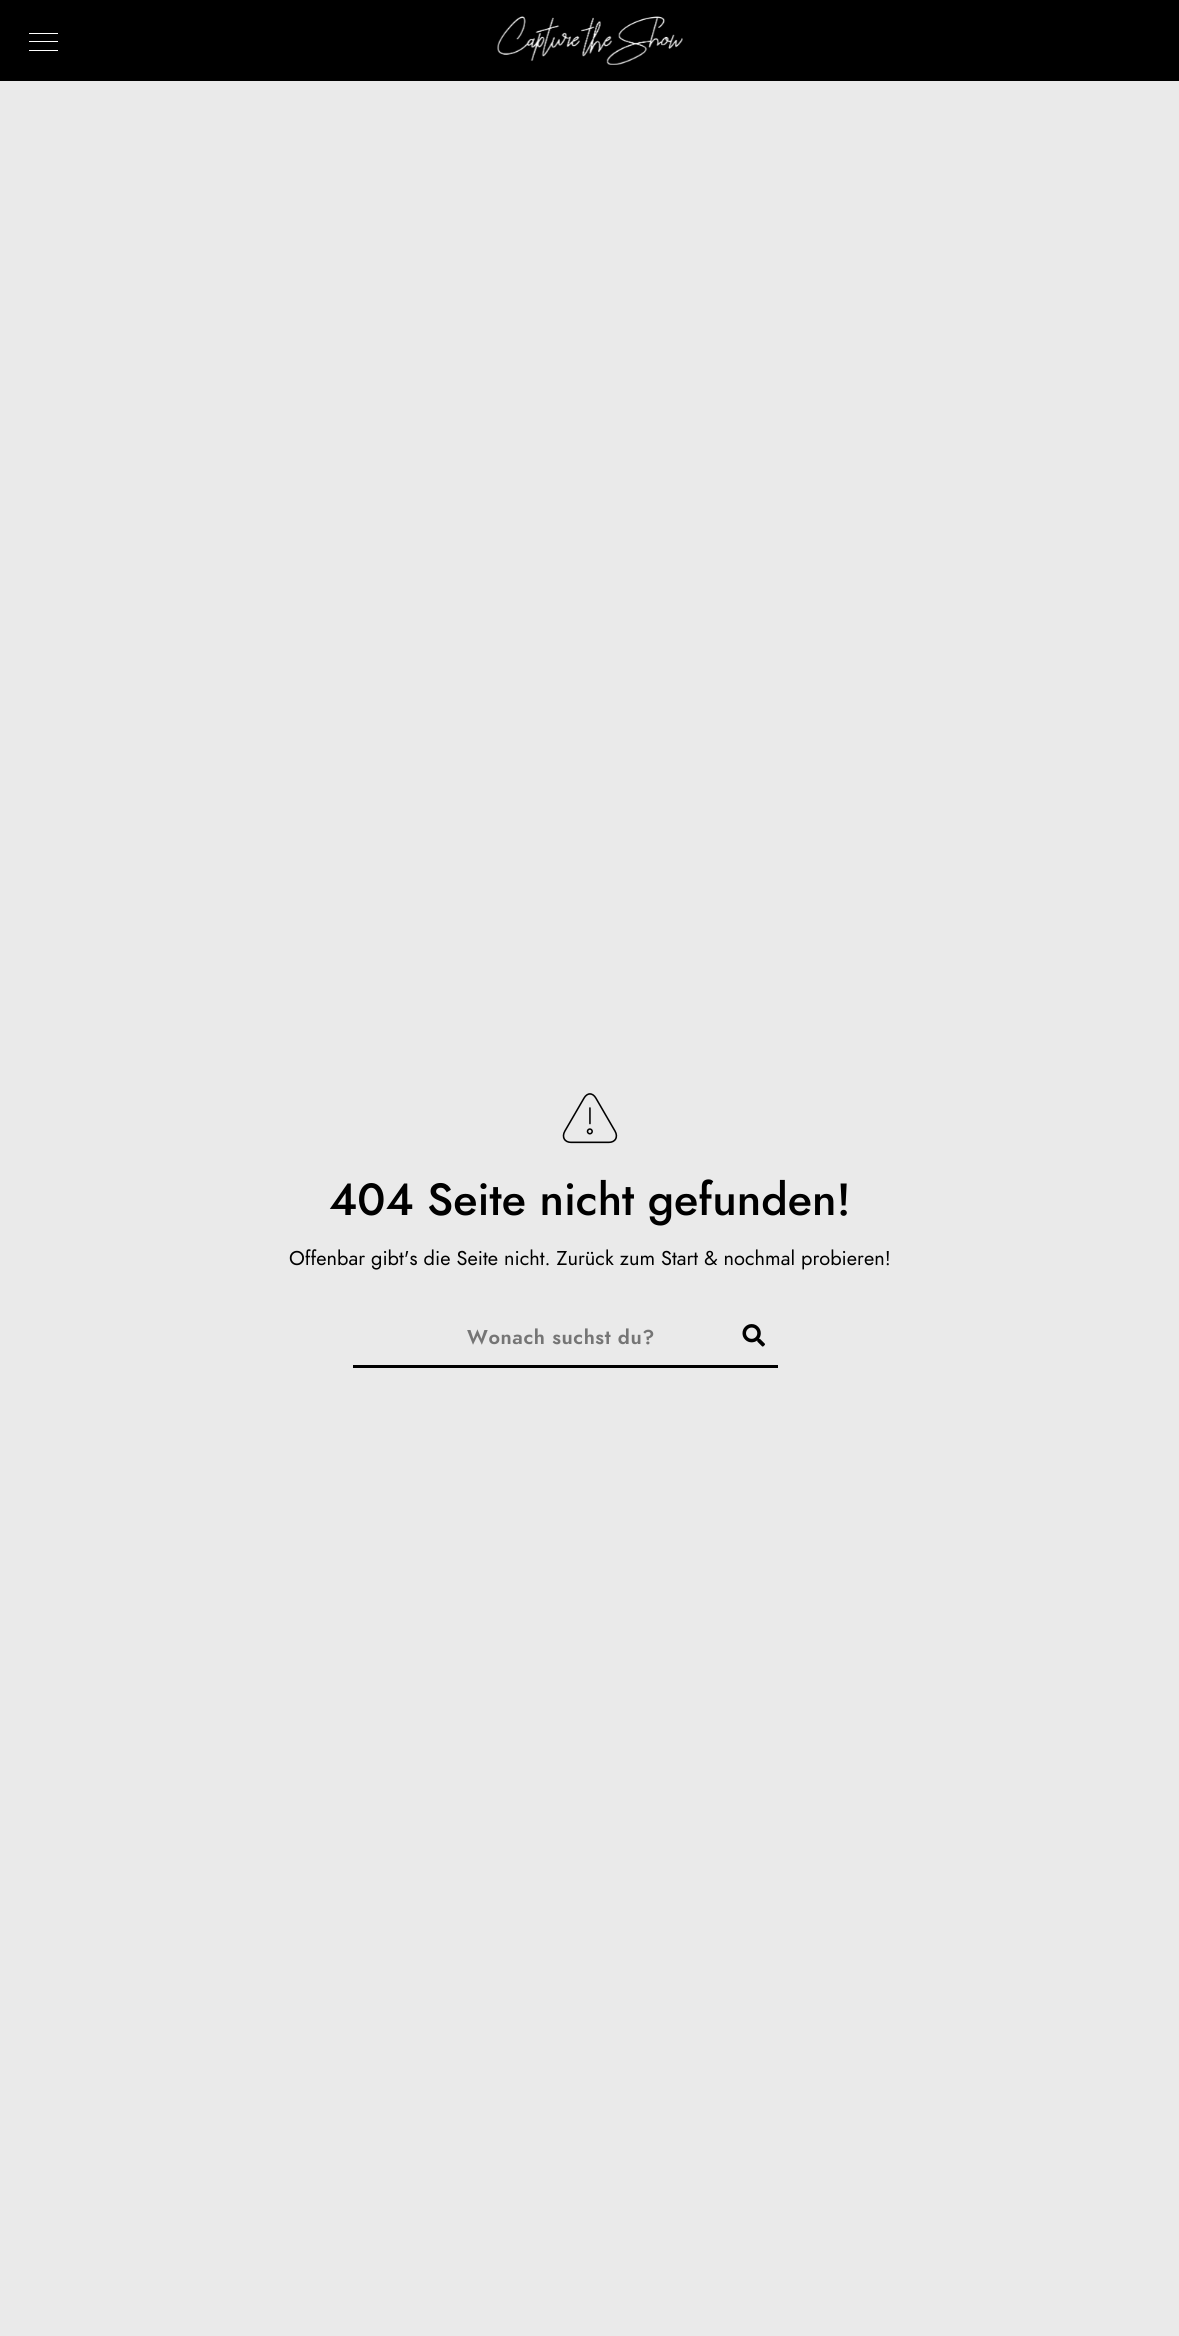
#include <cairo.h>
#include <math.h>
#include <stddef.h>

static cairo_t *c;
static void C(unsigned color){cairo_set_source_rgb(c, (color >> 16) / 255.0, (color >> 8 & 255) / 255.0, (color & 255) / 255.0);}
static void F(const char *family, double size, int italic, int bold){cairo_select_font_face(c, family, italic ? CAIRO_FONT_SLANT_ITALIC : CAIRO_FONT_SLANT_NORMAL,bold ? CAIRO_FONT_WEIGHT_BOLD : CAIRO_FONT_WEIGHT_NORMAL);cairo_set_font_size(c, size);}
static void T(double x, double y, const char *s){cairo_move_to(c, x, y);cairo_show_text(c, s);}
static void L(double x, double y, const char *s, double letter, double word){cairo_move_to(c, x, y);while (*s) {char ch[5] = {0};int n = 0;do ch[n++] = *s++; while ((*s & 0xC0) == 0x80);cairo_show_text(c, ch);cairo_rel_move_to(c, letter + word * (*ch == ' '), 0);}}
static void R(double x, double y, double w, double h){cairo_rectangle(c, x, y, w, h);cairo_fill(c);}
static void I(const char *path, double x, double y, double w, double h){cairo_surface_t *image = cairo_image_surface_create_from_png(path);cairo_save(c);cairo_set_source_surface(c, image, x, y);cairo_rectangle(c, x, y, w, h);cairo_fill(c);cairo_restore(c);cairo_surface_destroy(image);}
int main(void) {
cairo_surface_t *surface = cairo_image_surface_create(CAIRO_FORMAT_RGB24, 1179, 2336);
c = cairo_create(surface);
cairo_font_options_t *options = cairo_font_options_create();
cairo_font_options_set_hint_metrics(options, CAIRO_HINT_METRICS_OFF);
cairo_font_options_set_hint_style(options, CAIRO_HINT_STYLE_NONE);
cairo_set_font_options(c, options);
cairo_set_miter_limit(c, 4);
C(0xeaeaea);
cairo_paint(c);
C(0x000000);
R(0,0,1179,81);
I("1.png",497,16,186,49);
C(0xffffff);
R(29,41,29,1);
R(29,33,29,1);
R(29,50,29,1);
I("2.png",562,1093,56,51);
F("Jost Medium",45,0,0);
C(0x000000);
T(329,1215,"404 Seite nicht gefunden!");
F("Jost",20,0,0);
T(289,1265,"Offenbar gibt's die Seite nicht. Zurück zum Start & nochmal probieren!");
R(353,1365,425,3);
F("Jost SemiBold",20,0,0);
C(0x757575);
L(467,1344,"Wonach suchst du?",.6,0);
I("3.png",742,1324,23,23);
cairo_surface_write_to_png(surface, "o.png");
cairo_font_options_destroy(options);
cairo_destroy(c);
cairo_surface_destroy(surface);
return 0;
}
